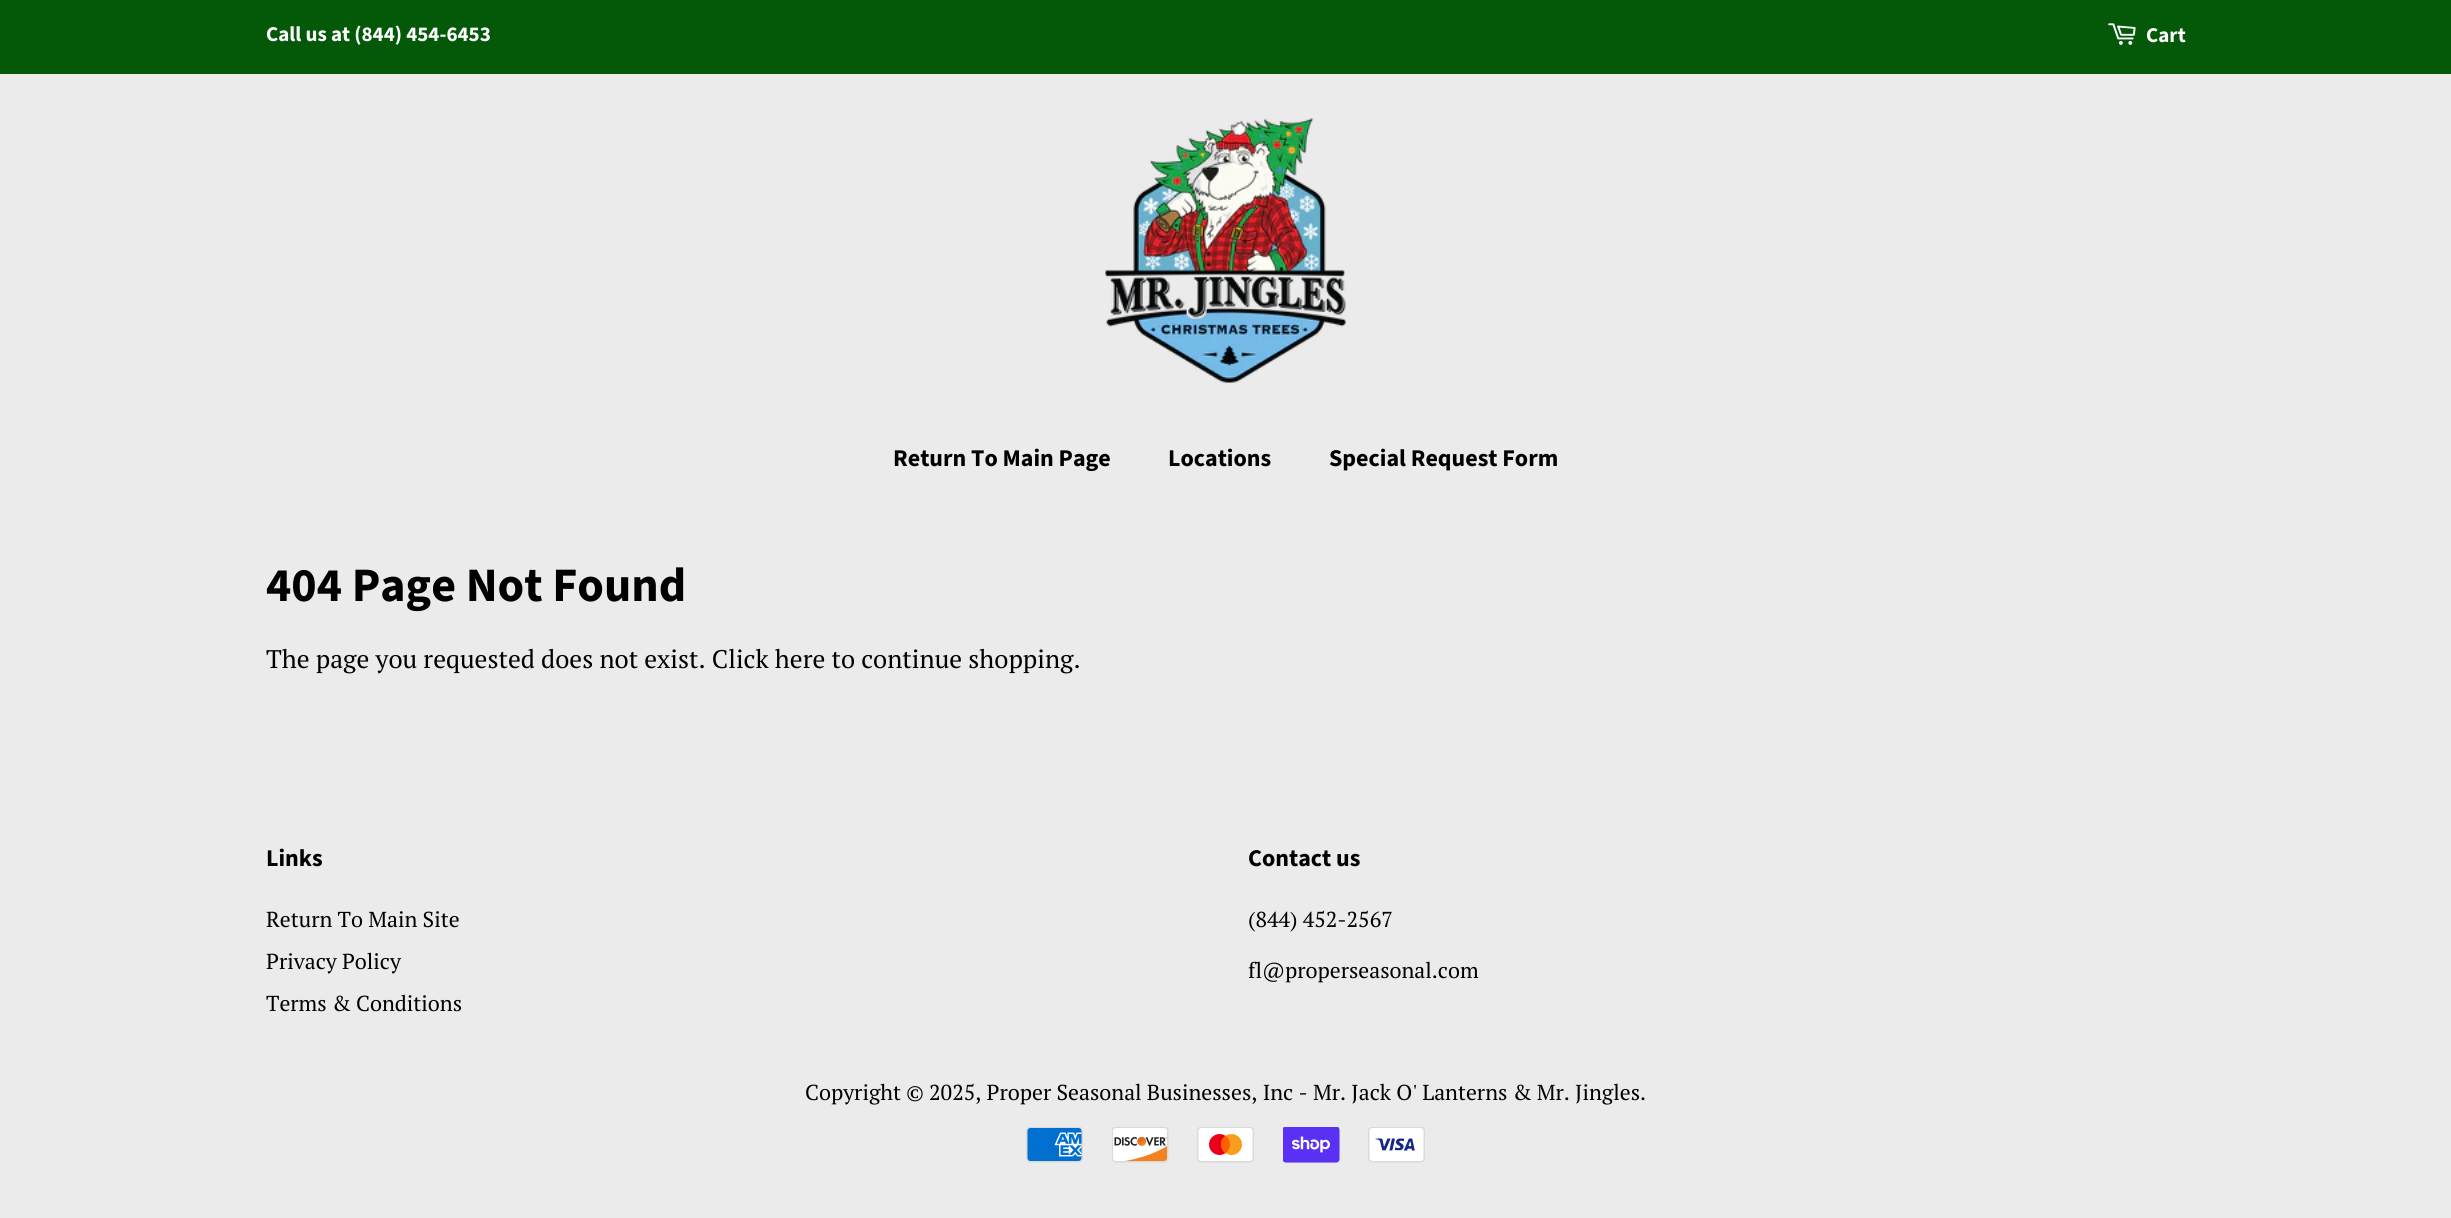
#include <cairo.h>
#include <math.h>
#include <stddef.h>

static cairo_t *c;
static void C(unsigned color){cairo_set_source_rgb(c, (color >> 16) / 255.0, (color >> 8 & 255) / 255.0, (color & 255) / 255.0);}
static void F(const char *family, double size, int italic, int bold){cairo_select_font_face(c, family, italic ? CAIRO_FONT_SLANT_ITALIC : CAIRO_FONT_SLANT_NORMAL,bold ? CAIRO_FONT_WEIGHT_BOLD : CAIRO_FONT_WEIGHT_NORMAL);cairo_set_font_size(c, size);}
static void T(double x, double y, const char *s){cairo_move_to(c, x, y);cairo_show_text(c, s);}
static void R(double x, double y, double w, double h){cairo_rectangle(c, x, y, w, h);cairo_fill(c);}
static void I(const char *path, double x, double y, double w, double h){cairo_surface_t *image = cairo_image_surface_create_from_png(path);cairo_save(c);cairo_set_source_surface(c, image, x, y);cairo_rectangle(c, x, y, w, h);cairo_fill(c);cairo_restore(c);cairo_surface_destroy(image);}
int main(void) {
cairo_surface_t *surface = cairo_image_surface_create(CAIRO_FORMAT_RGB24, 2451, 1218);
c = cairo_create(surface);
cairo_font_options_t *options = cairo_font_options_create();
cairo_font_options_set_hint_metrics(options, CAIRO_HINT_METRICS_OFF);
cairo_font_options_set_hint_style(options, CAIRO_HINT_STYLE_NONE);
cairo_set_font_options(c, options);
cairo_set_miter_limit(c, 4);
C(0xeaebea);
cairo_paint(c);
C(0x035908);
R(0,0,2451,74);
F("Source Sans Pro",21,0,1);
C(0xffffff);
T(266,41,"Call us at (844) 454-6453");
I("1.png",2108,23,28,22);
T(2146,42,"Cart");
I("2.png",1105,118,241,265);
F("Source Sans Pro",24,0,1);
C(0x000000);
T(893,466,"Return To Main Page");
T(1168,466,"Locations");
T(1329,466,"Special Request Form");
F("Source Sans Pro",48,0,1);
T(266,601,"404 Page Not Found");
F("PT Serif",25.5,0,0);
T(266,668,"The page you requested does not exist. Click here to continue shopping.");
F("Source Sans Pro",24,0,1);
T(266,866,"Links");
F("PT Serif",21.65,0,0);
T(266,927,"Return To Main Site");
T(266,969,"Privacy Policy");
T(266,1011,"Terms & Conditions");
F("Source Sans Pro",24,0,1);
T(1248,866,"Contact us");
F("PT Serif",21.65,0,0);
T(1248,927,"(844) 452-2567");
T(1248,978,"fl@properseasonal.com");
T(805,1100,"Copyright © 2025, Proper Seasonal Businesses, Inc - Mr. Jack O' Lanterns & Mr. Jingles.");
I("3.png",1026,1127,57,36);
I("4.png",1112,1127,57,36);
I("5.png",1197,1127,57,36);
I("6.png",1283,1127,57,36);
I("7.png",1368,1127,57,36);
cairo_surface_write_to_png(surface, "o.png");
cairo_font_options_destroy(options);
cairo_destroy(c);
cairo_surface_destroy(surface);
return 0;
}
